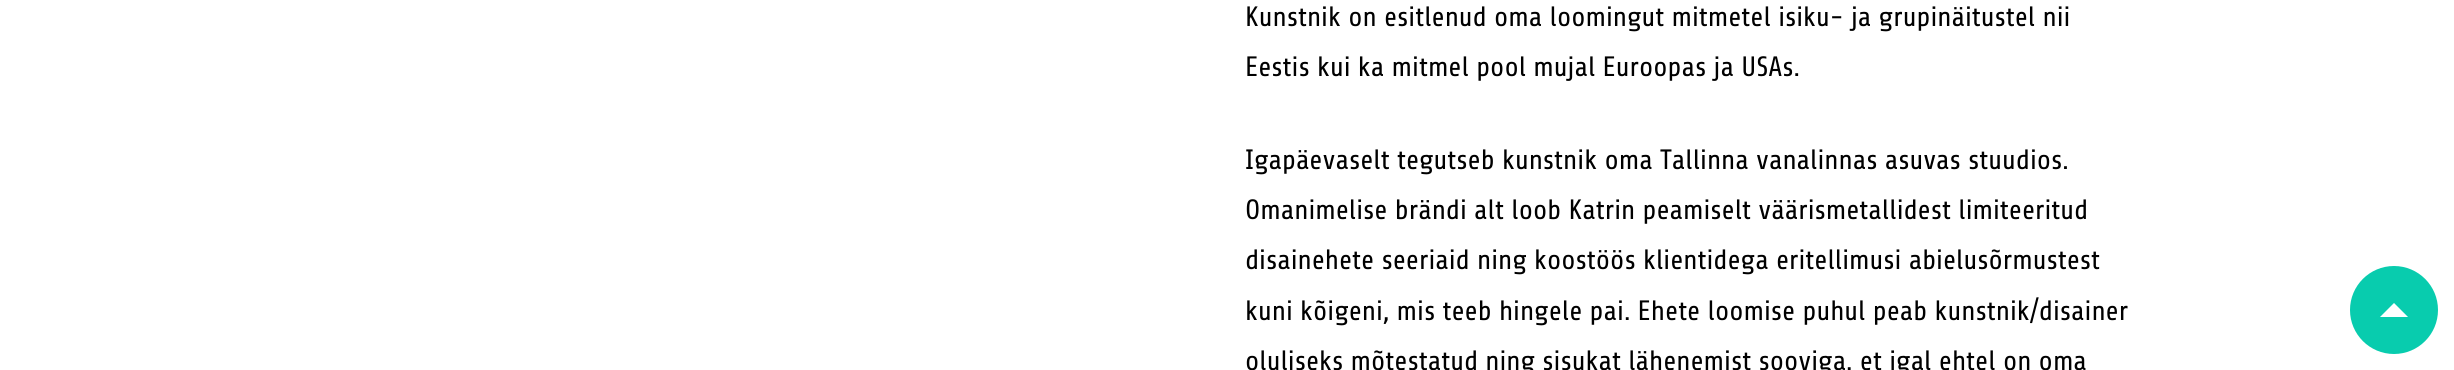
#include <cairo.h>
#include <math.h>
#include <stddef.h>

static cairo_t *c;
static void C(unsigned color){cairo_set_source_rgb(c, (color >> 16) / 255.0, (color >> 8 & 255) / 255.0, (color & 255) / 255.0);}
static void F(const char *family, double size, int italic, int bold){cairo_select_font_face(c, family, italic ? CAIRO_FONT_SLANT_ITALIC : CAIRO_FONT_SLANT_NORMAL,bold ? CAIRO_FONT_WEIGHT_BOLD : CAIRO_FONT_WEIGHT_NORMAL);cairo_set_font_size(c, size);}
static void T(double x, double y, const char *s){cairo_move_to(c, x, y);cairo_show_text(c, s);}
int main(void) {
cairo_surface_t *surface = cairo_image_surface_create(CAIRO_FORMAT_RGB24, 2454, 370);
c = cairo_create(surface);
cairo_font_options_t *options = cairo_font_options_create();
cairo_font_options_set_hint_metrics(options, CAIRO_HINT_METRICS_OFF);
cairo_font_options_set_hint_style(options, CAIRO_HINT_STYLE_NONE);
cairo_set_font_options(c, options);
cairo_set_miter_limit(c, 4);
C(0xffffff);
cairo_paint(c);
F("Share",28,0,0);
C(0x000000);
T(1245,26,"Kunstnik on esitlenud oma loomingut mitmetel isiku- ja grupinäitustel nii");
T(1245,76,"Eestis kui ka mitmel pool mujal Euroopas ja USAs.");
T(1245,169,"Igapäevaselt tegutseb kunstnik oma Tallinna vanalinnas asuvas stuudios.");
T(1245,219,"Omanimelise brändi alt loob Katrin peamiselt väärismetallidest limiteeritud");
T(1245,269,"disainehete seeriaid ning koostöös klientidega eritellimusi abielusõrmustest");
T(1245,320,"kuni kõigeni, mis teeb hingele pai. Ehete loomise puhul peab kunstnik/disainer");
T(1245,370,"oluliseks mõtestatud ning sisukat lähenemist sooviga, et igal ehtel on oma");
C(0x08ccae);
cairo_new_path(c);
cairo_arc(c,2394,310,44,0,2 * M_PI);
cairo_fill(c);
C(0xffffff);
cairo_new_path(c);
cairo_move_to(c,2408,317);
cairo_line_to(c,2380,317);
cairo_line_to(c,2394,303);
cairo_close_path(c);
cairo_fill(c);
cairo_surface_write_to_png(surface, "o.png");
cairo_font_options_destroy(options);
cairo_destroy(c);
cairo_surface_destroy(surface);
return 0;
}
